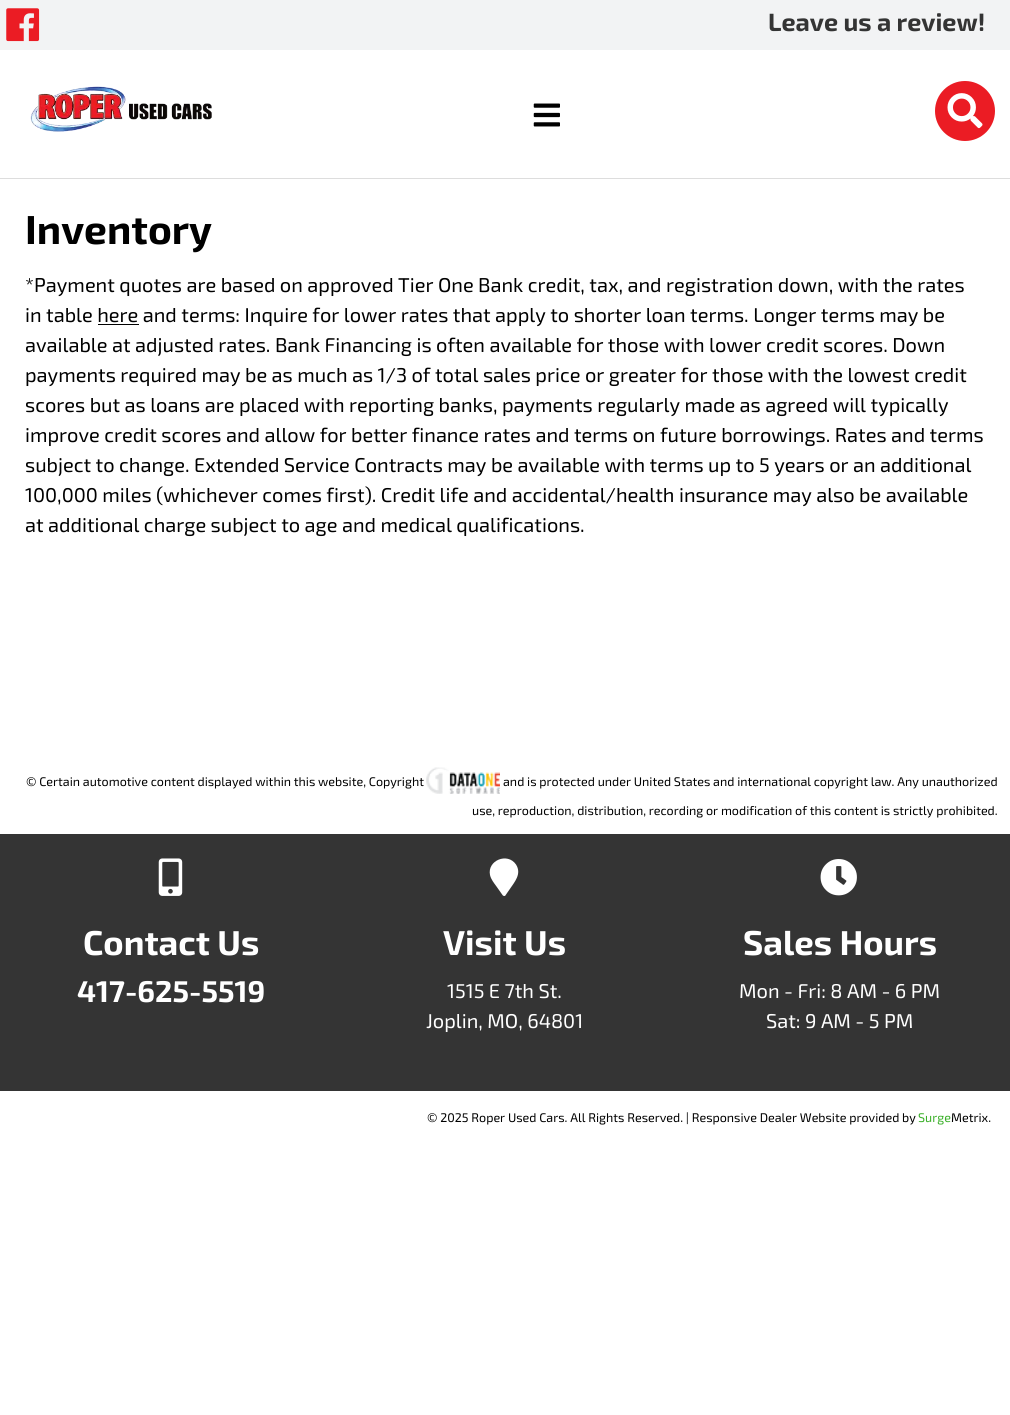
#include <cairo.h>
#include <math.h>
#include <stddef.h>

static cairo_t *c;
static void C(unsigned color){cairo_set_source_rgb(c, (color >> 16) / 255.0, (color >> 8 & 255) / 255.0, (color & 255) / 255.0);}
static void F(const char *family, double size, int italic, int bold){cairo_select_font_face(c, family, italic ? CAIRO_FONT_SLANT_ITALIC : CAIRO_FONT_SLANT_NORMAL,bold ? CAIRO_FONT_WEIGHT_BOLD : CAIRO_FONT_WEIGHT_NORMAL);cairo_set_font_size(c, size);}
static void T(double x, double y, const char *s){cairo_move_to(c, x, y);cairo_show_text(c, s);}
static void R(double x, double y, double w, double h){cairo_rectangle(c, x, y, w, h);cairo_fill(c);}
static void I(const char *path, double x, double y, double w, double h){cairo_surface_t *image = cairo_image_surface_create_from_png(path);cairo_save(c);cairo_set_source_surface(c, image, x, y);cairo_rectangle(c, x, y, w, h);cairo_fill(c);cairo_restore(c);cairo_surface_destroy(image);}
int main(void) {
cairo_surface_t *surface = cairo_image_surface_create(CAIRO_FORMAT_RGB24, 1010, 1415);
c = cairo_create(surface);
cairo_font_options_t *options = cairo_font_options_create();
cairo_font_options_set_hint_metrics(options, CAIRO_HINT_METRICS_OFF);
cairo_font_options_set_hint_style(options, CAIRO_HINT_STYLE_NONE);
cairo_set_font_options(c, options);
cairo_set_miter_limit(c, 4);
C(0xffffff);
cairo_paint(c);
C(0xdddddd);
R(0,178,1010,1);
C(0xf2f3f4);
R(0,0,1010,50);
I("1.png",6,8,34,34);
F("Exo 2",25,0,1);
C(0x343434);
T(768,31,"Leave us a review!");
I("2.png",30,86,182,46);
I("3.png",533,103,27,24);
C(0xeb1c24);
cairo_arc(c,965,111,30,0,2 * M_PI);
cairo_fill(c);
I("4.png",947,93,36,36);
F("Exo 2",40.5,0,1);
C(0x000000);
T(25,244,"Inventory");
F("Exo 2",20,0,0);
T(25,292,"*Payment quotes are based on approved Tier One Bank credit, tax, and registration down, with the rates");
T(25,322,"in table here and terms: Inquire for lower rates that apply to shorter loan terms. Longer terms may be");
R(98,324,41,1);
T(25,352,"available at adjusted rates. Bank Financing is often available for those with lower credit scores. Down");
T(25,382,"payments required may be as much as 1/3 of total sales price or greater for those with the lowest credit");
T(25,412,"scores but as loans are placed with reporting banks, payments regularly made as agreed will typically");
T(25,442,"improve credit scores and allow for better finance rates and terms on future borrowings. Rates and terms");
T(25,472,"subject to change. Extended Service Contracts may be available with terms up to 5 years or an additional");
T(25,502,"100,000 miles (whichever comes first). Credit life and accidental/health insurance may also be available");
T(25,532,"at additional charge subject to age and medical qualifications.");
F("Exo 2",12.5,0,0);
T(26,786,"© Certain automotive content displayed within this website, Copyright");
I("5.png",426,767,74,27);
T(503,786,"and is protected under United States and international copyright law. Any unauthorized");
T(472,815,"use, reproduction, distribution, recording or modification of this content is strictly prohibited.");
C(0x343434);
R(0,834,1010,257);
I("6.png",158,858,25,38);
F("Exo 2",34.5,0,1);
C(0xffffff);
T(83,955,"Contact Us");
F("Exo 2",30,0,1);
T(77,1002,"417-625-5519");
cairo_new_path(c);
cairo_move_to(c,502.5,895);
cairo_line_to(c,496.5,886.5);
cairo_curve_to(c,494,883,491,879.5,490,875);
cairo_curve_to(c,487,860.5,507.5,852,516,864.5);
cairo_curve_to(c,522,874,514.5,882,509.5,889.5);
cairo_line_to(c,505,896);
cairo_curve_to(c,504,896,503,896,502.5,895);
cairo_close_path(c);
cairo_fill(c);
F("Exo 2",34.5,0,1);
T(443,955,"Visit Us");
F("Exo 2",20,0,0);
T(447,998,"1515 E 7th St.");
T(426,1028,"Joplin, MO, 64801");
I("7.png",820,859,37,37);
F("Exo 2",34.5,0,1);
T(743,955,"Sales Hours");
F("Exo 2",20,0,0);
T(739,998,"Mon - Fri: 8 AM - 6 PM");
T(766,1028,"Sat: 9 AM - 5 PM");
F("Exo 2",12.5,0,0);
C(0x000000);
T(427,1122,"© 2025 Roper Used Cars. All Rights Reserved. | Responsive Dealer Website provided by");
C(0x39af27);
T(918,1122,"Surge");
C(0x000000);
T(951,1122,"Metrix.");
cairo_surface_write_to_png(surface, "o.png");
cairo_font_options_destroy(options);
cairo_destroy(c);
cairo_surface_destroy(surface);
return 0;
}
